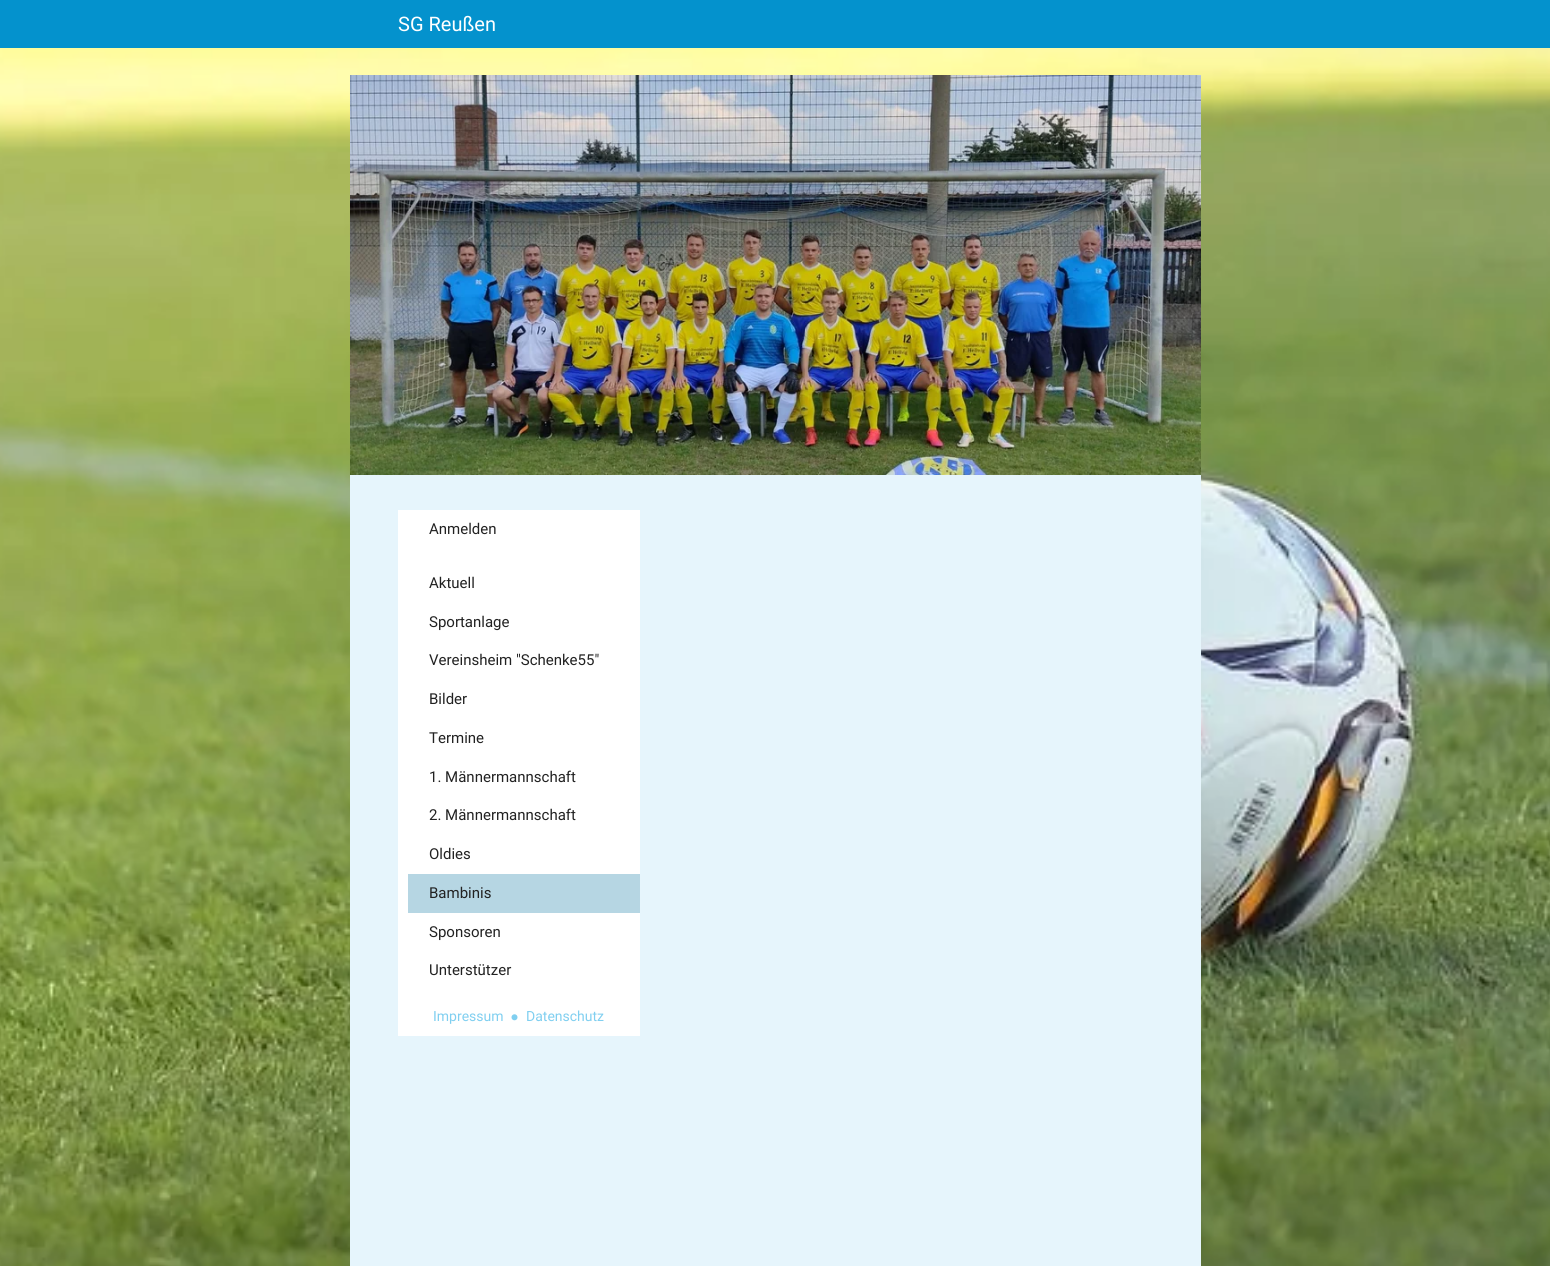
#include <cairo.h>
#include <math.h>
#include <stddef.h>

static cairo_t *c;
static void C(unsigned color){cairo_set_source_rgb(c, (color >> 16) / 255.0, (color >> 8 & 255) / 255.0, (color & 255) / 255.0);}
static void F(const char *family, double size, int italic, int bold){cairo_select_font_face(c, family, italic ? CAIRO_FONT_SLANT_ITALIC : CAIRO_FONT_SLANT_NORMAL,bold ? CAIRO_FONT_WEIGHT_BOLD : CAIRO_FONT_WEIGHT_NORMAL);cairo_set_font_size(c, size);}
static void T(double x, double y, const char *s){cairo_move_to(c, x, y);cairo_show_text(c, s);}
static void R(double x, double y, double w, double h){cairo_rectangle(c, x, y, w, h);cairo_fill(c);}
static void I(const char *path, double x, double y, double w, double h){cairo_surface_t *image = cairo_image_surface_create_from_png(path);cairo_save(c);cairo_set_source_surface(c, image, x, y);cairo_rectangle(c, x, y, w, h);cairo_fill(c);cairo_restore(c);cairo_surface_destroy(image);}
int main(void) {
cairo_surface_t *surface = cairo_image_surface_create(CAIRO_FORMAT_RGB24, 1550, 1266);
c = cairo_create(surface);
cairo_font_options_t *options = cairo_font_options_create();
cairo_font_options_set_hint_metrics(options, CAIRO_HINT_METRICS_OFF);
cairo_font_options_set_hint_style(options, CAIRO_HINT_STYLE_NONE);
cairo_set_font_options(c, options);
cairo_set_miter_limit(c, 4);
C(0xffffff);
cairo_paint(c);
C(0x0492cd);
R(0,0,1550,48);
F("Roboto",20,0,0);
C(0xffffff);
T(398,31,"SG Reußen");
I("2.png",0,48,1550,1218);
I("1.png",350,75,851,400);
C(0xe6f5fc);
R(350,475,851,791);
C(0xffffff);
R(398,510,242,526);
F("Roboto",15,0,0);
C(0x222222);
T(429,534,"Anmelden");
T(429,588,"Aktuell");
T(429,627,"Sportanlage");
T(429,665,"Vereinsheim \"Schenke55\"");
T(429,704,"Bilder");
T(429,743,"Termine");
T(429,782,"1. Männermannschaft");
T(429,820,"2. Männermannschaft");
T(429,859,"Oldies");
C(0xb6d6e3);
R(408,874,232,39);
C(0x222222);
T(429,898,"Bambinis");
T(429,937,"Sponsoren");
T(429,975,"Unterstützer");
F("Roboto",14,0,0);
C(0x80cff0);
T(433,1021,"Impressum");
F("FreeSans",14,0,0);
T(511,1021,"⦁");
F("Roboto",14,0,0);
T(526,1021,"Datenschutz");
cairo_surface_write_to_png(surface, "o.png");
cairo_font_options_destroy(options);
cairo_destroy(c);
cairo_surface_destroy(surface);
return 0;
}
